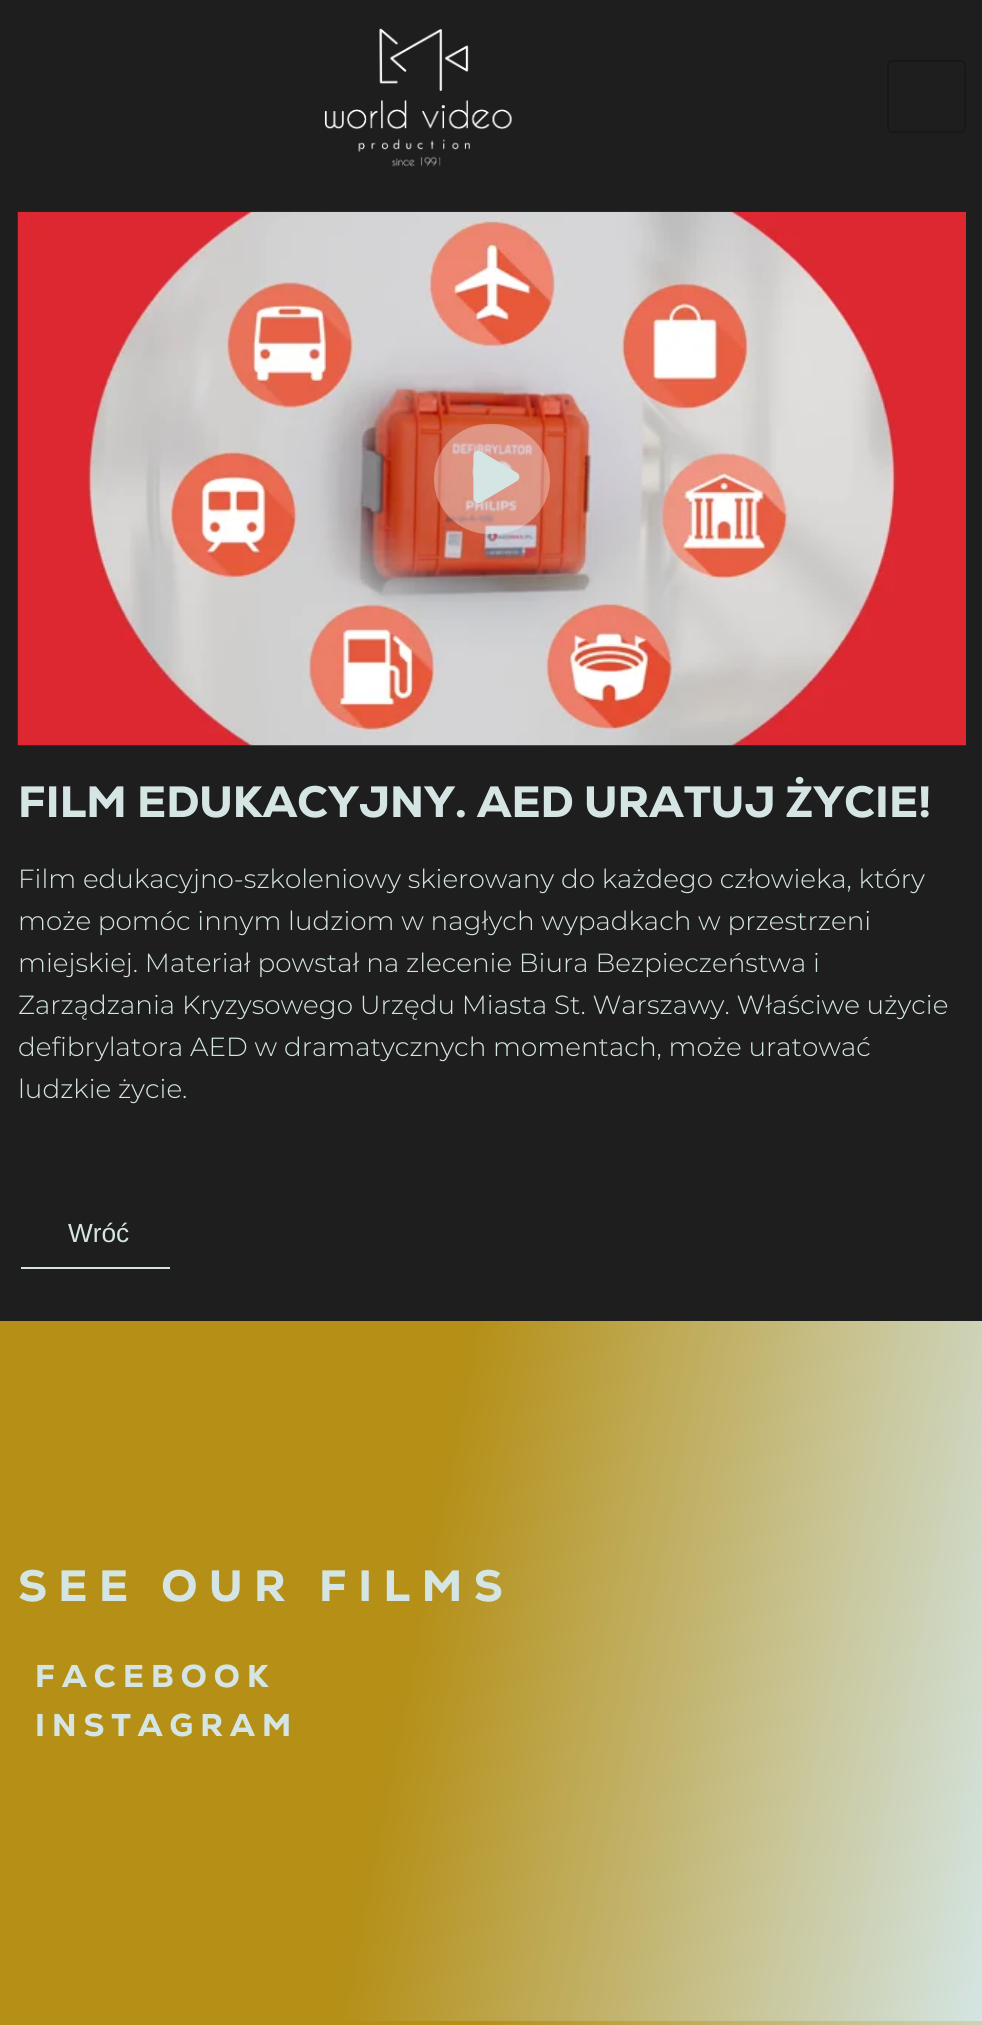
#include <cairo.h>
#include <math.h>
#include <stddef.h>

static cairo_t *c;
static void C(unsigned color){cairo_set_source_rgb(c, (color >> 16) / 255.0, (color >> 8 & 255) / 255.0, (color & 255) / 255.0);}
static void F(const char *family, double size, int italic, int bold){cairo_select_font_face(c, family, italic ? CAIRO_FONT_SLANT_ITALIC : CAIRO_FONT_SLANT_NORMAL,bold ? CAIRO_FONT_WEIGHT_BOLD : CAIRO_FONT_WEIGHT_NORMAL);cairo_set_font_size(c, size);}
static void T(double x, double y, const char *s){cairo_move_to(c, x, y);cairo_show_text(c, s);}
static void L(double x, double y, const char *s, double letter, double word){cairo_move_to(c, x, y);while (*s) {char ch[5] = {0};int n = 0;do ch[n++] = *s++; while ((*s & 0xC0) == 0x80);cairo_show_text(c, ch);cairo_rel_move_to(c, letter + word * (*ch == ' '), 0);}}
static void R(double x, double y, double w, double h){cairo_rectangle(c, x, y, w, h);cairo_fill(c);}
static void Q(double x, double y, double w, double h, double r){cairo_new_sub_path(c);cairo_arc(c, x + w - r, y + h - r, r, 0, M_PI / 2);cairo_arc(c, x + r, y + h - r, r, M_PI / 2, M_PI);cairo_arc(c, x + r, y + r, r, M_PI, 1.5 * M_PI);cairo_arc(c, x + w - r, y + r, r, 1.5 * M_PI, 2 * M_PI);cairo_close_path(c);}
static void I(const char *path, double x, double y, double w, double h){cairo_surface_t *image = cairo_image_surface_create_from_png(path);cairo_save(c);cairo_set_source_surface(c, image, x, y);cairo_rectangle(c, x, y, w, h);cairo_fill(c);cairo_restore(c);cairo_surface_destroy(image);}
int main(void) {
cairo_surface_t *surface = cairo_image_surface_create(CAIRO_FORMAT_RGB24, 982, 2025);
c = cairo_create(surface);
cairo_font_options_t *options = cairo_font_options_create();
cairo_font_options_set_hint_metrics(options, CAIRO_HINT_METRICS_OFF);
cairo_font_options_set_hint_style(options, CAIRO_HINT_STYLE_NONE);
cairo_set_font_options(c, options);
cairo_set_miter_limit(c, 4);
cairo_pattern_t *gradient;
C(0x1e1e1e);
cairo_paint(c);
I("1.png",324,28,188,139);
Q(888,61,77,71,4);
C(0x181818);
cairo_stroke(c);
I("2.png",17,211,949,535);
cairo_set_source_rgba(c,0.988,0.988,0.988,0.35);
Q(434,424,116,110,55);
cairo_fill(c);
I("3.png",473,450,47,54);
F("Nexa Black",43.75,0,0);
C(0xd4e5e3);
T(18,817,"FILM EDUKACYJNY. AED URATUJ ŻYCIE!");
F("Montserrat Light",26.25,0,0);
T(18,888,"Film edukacyjno-szkoleniowy skierowany do każdego człowieka, który");
T(18,930,"może pomóc innym ludziom w nagłych wypadkach w przestrzeni");
T(18,972,"miejskiej. Materiał powstał na zlecenie Biura Bezpieczeństwa i");
T(18,1014,"Zarządzania Kryzysowego Urzędu Miasta St. Warszawy. Właściwe użycie");
T(18,1056,"defibrylatora AED w dramatycznych momentach, może uratować");
T(18,1098,"ludzkie życie.");
R(21,1267,149,2);
F("Liberation Sans",26.25,0,0);
T(68,1242,"Wróć");
gradient = cairo_pattern_create_linear(-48,1566,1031,1776);
cairo_pattern_add_color_stop_rgba(gradient,.42,0.71,0.561,0.086,1);
cairo_pattern_add_color_stop_rgba(gradient,1,0.831,0.898,0.89,1);
cairo_set_source(c,gradient);
cairo_pattern_destroy(gradient);
R(0,1321,982,700);
F("Nexa Black",43.75,0,0);
C(0xd4e5e3);
L(18,1601,"SEE OUR FILMS",11.5,0);
F("Nexa Black",31.5,0,0);
L(35,1687,"FACEBOOK",7,0);
L(35,1736,"INSTAGRAM",7,0);
gradient = cairo_pattern_create_linear(-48,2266,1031,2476);
cairo_pattern_add_color_stop_rgba(gradient,.42,0.71,0.561,0.086,1);
cairo_pattern_add_color_stop_rgba(gradient,1,0.831,0.898,0.89,1);
cairo_set_source(c,gradient);
cairo_pattern_destroy(gradient);
R(0,2021,982,4);
cairo_surface_write_to_png(surface, "o.png");
cairo_font_options_destroy(options);
cairo_destroy(c);
cairo_surface_destroy(surface);
return 0;
}
